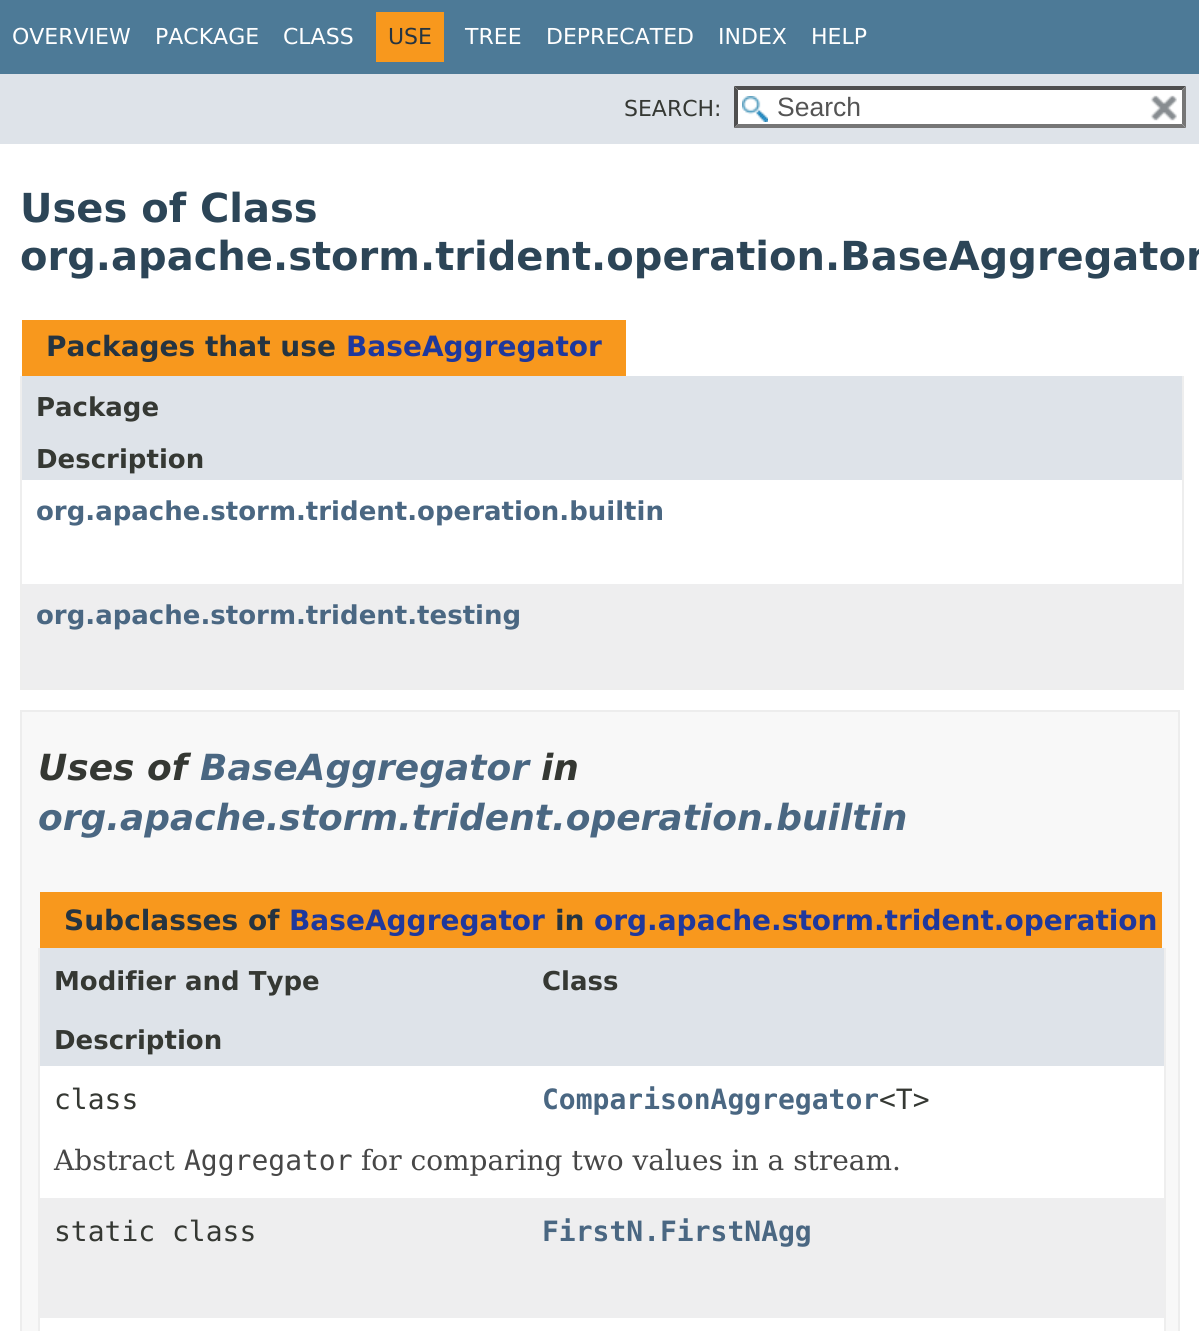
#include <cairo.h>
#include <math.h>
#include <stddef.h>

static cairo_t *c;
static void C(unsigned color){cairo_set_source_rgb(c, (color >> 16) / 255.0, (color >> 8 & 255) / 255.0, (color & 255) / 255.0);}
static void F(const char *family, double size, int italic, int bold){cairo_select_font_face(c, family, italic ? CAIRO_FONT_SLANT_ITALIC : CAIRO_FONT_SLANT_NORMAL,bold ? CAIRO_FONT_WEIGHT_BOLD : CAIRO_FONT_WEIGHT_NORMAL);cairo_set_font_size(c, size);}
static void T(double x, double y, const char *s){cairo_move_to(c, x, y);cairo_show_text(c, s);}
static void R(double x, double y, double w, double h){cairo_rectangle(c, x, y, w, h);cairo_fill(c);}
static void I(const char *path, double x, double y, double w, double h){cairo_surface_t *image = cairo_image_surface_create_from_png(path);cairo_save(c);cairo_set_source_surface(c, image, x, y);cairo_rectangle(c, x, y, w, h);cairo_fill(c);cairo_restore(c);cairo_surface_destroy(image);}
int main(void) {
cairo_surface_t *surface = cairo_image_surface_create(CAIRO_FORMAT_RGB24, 1199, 1331);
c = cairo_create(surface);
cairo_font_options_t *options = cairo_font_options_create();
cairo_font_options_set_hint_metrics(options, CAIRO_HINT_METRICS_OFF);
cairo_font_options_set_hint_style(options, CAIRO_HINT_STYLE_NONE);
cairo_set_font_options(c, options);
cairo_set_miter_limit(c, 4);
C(0xffffff);
cairo_paint(c);
C(0x4d7a97);
R(0,0,1199,74);
F("DejaVu Sans",22,0,0);
C(0xffffff);
T(12,44,"OVERVIEW");
T(155,44,"PACKAGE");
T(283,44,"CLASS");
C(0xf8981d);
R(376,12,68,50);
C(0x253441);
T(388,44,"USE");
C(0xffffff);
T(465,44,"TREE");
T(546,44,"DEPRECATED");
T(718,44,"INDEX");
T(811,44,"HELP");
C(0xdee3e9);
R(0,74,1199,70);
C(0x353833);
T(624,116,"SEARCH:");
C(0xffffff);
R(734,86,452,42);
I("1.png",742,96,26,26);
C(0x4f4f4f);
cairo_new_path(c);
cairo_move_to(c,734,86);
cairo_line_to(c,1186,86);
cairo_line_to(c,1182,90);
cairo_line_to(c,738,90);
cairo_close_path(c);
cairo_fill(c);
C(0x767676);
cairo_new_path(c);
cairo_move_to(c,1186,86);
cairo_line_to(c,1186,128);
cairo_line_to(c,1182,124);
cairo_line_to(c,1182,90);
cairo_close_path(c);
cairo_fill(c);
cairo_new_path(c);
cairo_move_to(c,1186,128);
cairo_line_to(c,734,128);
cairo_line_to(c,738,124);
cairo_line_to(c,1182,124);
cairo_close_path(c);
cairo_fill(c);
C(0x4f4f4f);
cairo_new_path(c);
cairo_move_to(c,734,128);
cairo_line_to(c,734,86);
cairo_line_to(c,738,90);
cairo_line_to(c,738,124);
cairo_close_path(c);
cairo_fill(c);
F("Liberation Sans",26.5,0,0);
C(0x545454);
T(777,116,"Search");
I("2.png",1150,95,27,26);
F("DejaVu Sans",40,0,1);
C(0x2c4557);
T(20,222,"Uses of Class");
T(20,270,"org.apache.storm.trident.operation.BaseAggregator");
C(0xf8981d);
R(22,320,604,56);
F("DejaVu Sans",28,0,1);
C(0x253441);
T(46,356,"Packages that use");
C(0x1f389c);
T(346,356,"BaseAggregator");
C(0xeeeeee);
R(1182,376,2,314);
R(20,688,1164,2);
R(20,376,2,314);
C(0xdee3e9);
R(22,376,1160,104);
F("DejaVu Sans",26,0,1);
C(0x353833);
T(36,416,"Package");
T(36,468,"Description");
C(0x4a6782);
T(36,520,"org.apache.storm.trident.operation.builtin");
C(0xeeeeef);
R(22,584,1160,104);
C(0x4a6782);
T(36,624,"org.apache.storm.trident.testing");
C(0xf8f8f8);
cairo_rectangle(c,21,711,1158,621);
cairo_fill_preserve(c);
C(0xededed);
cairo_stroke(c);
F("DejaVu Sans",36,1,1);
C(0x353833);
T(38,780,"Uses of");
C(0x4a6782);
T(200,780,"BaseAggregator");
C(0x353833);
T(541,780,"in");
C(0x4a6782);
T(38,830,"org.apache.storm.trident.operation.builtin");
C(0xf8981d);
R(40,892,1122,56);
F("DejaVu Sans",28,0,1);
C(0x253441);
T(64,930,"Subclasses of");
C(0x1f389c);
T(289,930,"BaseAggregator");
C(0x253441);
T(555,930,"in");
C(0x1f389c);
T(594,930,"org.apache.storm.trident.operation");
C(0xeeeeee);
R(1164,948,2,383);
R(38,948,2,383);
C(0xdee3e9);
R(40,948,1124,58);
F("DejaVu Sans",26,0,1);
C(0x353833);
T(54,990,"Modifier and Type");
T(542,990,"Class");
C(0xdee3e9);
R(40,1006,1124,60);
C(0x353833);
T(54,1049,"Description");
C(0xffffff);
R(40,1066,1124,60);
F("DejaVu Sans Mono",28,0,0);
C(0x353833);
T(54,1109,"class");
F("DejaVu Sans Mono",28,0,1);
C(0x4a6782);
T(542,1109,"ComparisonAggregator");
F("DejaVu Sans Mono",28,0,0);
C(0x353833);
T(879,1109,"<T>");
C(0xffffff);
R(40,1126,1124,72);
F("DejaVu Serif",28,0,0);
C(0x474747);
T(54,1170,"Abstract");
F("DejaVu Sans Mono",28,0,0);
T(184,1170,"Aggregator");
F("DejaVu Serif",28,0,0);
T(361,1170,"for comparing two values in a stream.");
C(0xeeeeef);
R(40,1198,1124,60);
F("DejaVu Sans Mono",28,0,0);
C(0x353833);
T(54,1241,"static class");
F("DejaVu Sans Mono",28,0,1);
C(0x4a6782);
T(542,1241,"FirstN.FirstNAgg");
C(0xeeeeef);
R(40,1258,1124,60);
C(0xffffff);
R(40,1318,1124,13);
cairo_surface_write_to_png(surface, "o.png");
cairo_font_options_destroy(options);
cairo_destroy(c);
cairo_surface_destroy(surface);
return 0;
}
